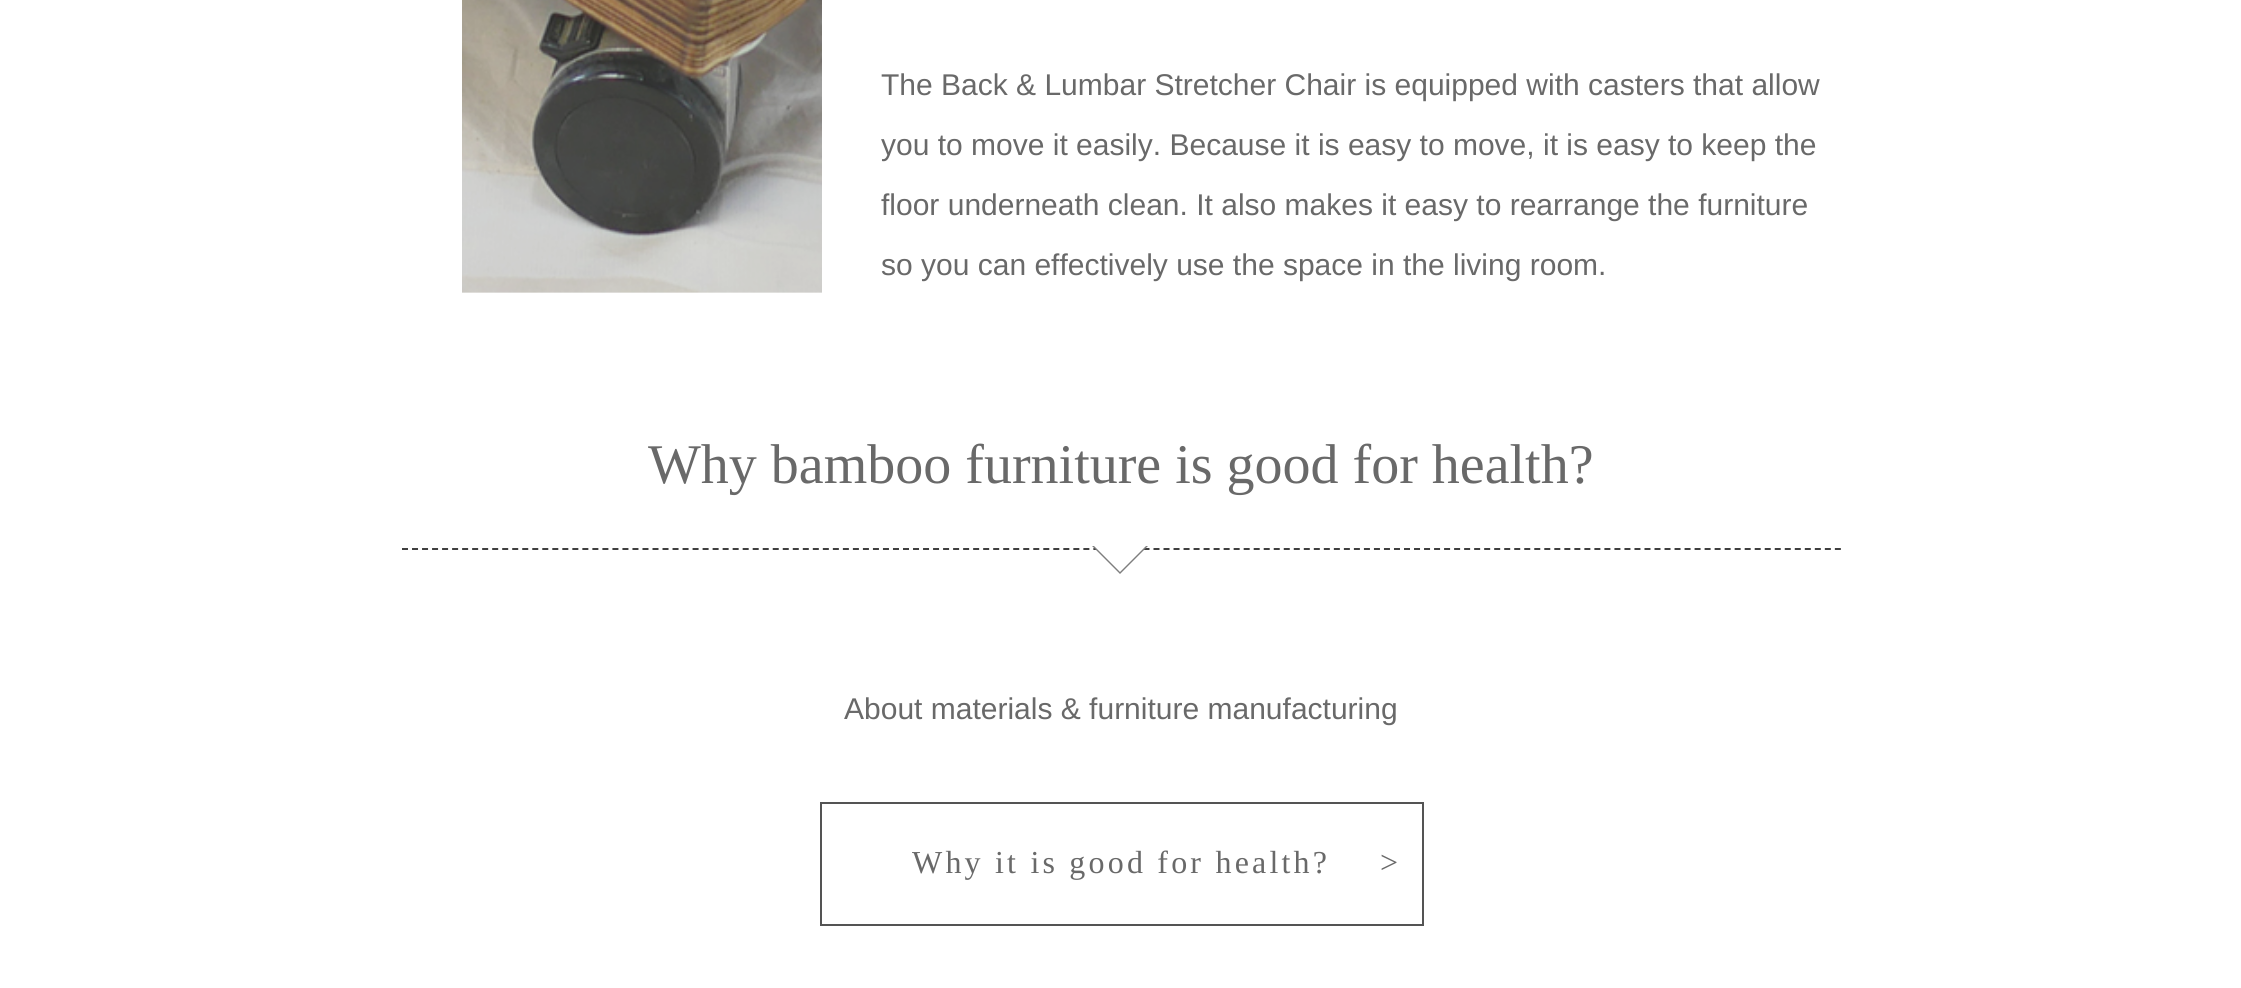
#include <cairo.h>
#include <math.h>
#include <stddef.h>

static cairo_t *c;
static void C(unsigned color){cairo_set_source_rgb(c, (color >> 16) / 255.0, (color >> 8 & 255) / 255.0, (color & 255) / 255.0);}
static void F(const char *family, double size, int italic, int bold){cairo_select_font_face(c, family, italic ? CAIRO_FONT_SLANT_ITALIC : CAIRO_FONT_SLANT_NORMAL,bold ? CAIRO_FONT_WEIGHT_BOLD : CAIRO_FONT_WEIGHT_NORMAL);cairo_set_font_size(c, size);}
static void T(double x, double y, const char *s){cairo_move_to(c, x, y);cairo_show_text(c, s);}
static void L(double x, double y, const char *s, double letter, double word){cairo_move_to(c, x, y);while (*s) {char ch[5] = {0};int n = 0;do ch[n++] = *s++; while ((*s & 0xC0) == 0x80);cairo_show_text(c, ch);cairo_rel_move_to(c, letter + word * (*ch == ' '), 0);}}
static void I(const char *path, double x, double y, double w, double h){cairo_surface_t *image = cairo_image_surface_create_from_png(path);cairo_save(c);cairo_set_source_surface(c, image, x, y);cairo_rectangle(c, x, y, w, h);cairo_fill(c);cairo_restore(c);cairo_surface_destroy(image);}
int main(void) {
cairo_surface_t *surface = cairo_image_surface_create(CAIRO_FORMAT_RGB24, 2241, 988);
c = cairo_create(surface);
cairo_font_options_t *options = cairo_font_options_create();
cairo_font_options_set_hint_metrics(options, CAIRO_HINT_METRICS_OFF);
cairo_font_options_set_hint_style(options, CAIRO_HINT_STYLE_NONE);
cairo_set_font_options(c, options);
cairo_set_miter_limit(c, 4);
C(0xffffff);
cairo_paint(c);
I("1.png",462,0,360,293);
F("Liberation Sans",30,0,0);
C(0x696969);
T(881,95,"The Back & Lumbar Stretcher Chair is equipped with casters that allow");
T(881,155,"you to move it easily. Because it is easy to move, it is easy to keep the");
T(881,215,"floor underneath clean. It also makes it easy to rearrange the furniture");
T(881,275,"so you can effectively use the space in the living room.");
cairo_new_path(c);
cairo_move_to(c,402,549);
cairo_line_to(c,1842,549);
C(0x3f3f3f);
cairo_set_dash(c,(double[]){6,4.02},2,0);
cairo_stroke(c);
F("Liberation Serif",56,0,0);
C(0x696969);
T(648,483,"Why bamboo furniture is good for health?");
C(0x7e7e7e);
cairo_new_path(c);
cairo_move_to(c,1092,546);
cairo_line_to(c,1148,546);
cairo_line_to(c,1120,574);
cairo_close_path(c);
cairo_fill(c);
C(0xffffff);
cairo_new_path(c);
cairo_move_to(c,1092,544);
cairo_line_to(c,1148,544);
cairo_line_to(c,1120,572);
cairo_close_path(c);
cairo_fill(c);
F("Liberation Sans",30,0,0);
C(0x696969);
T(844,719,"About materials & furniture manufacturing");
cairo_rectangle(c,821,803,602,122);
C(0x545454);
cairo_set_dash(c,NULL,0,0);
cairo_stroke(c);
F("Liberation Serif",32,0,0);
C(0x696969);
L(912,873,"Why it is good for health?",3.2,0);
L(1380,873,">",3.2,0);
cairo_surface_write_to_png(surface, "o.png");
cairo_font_options_destroy(options);
cairo_destroy(c);
cairo_surface_destroy(surface);
return 0;
}
